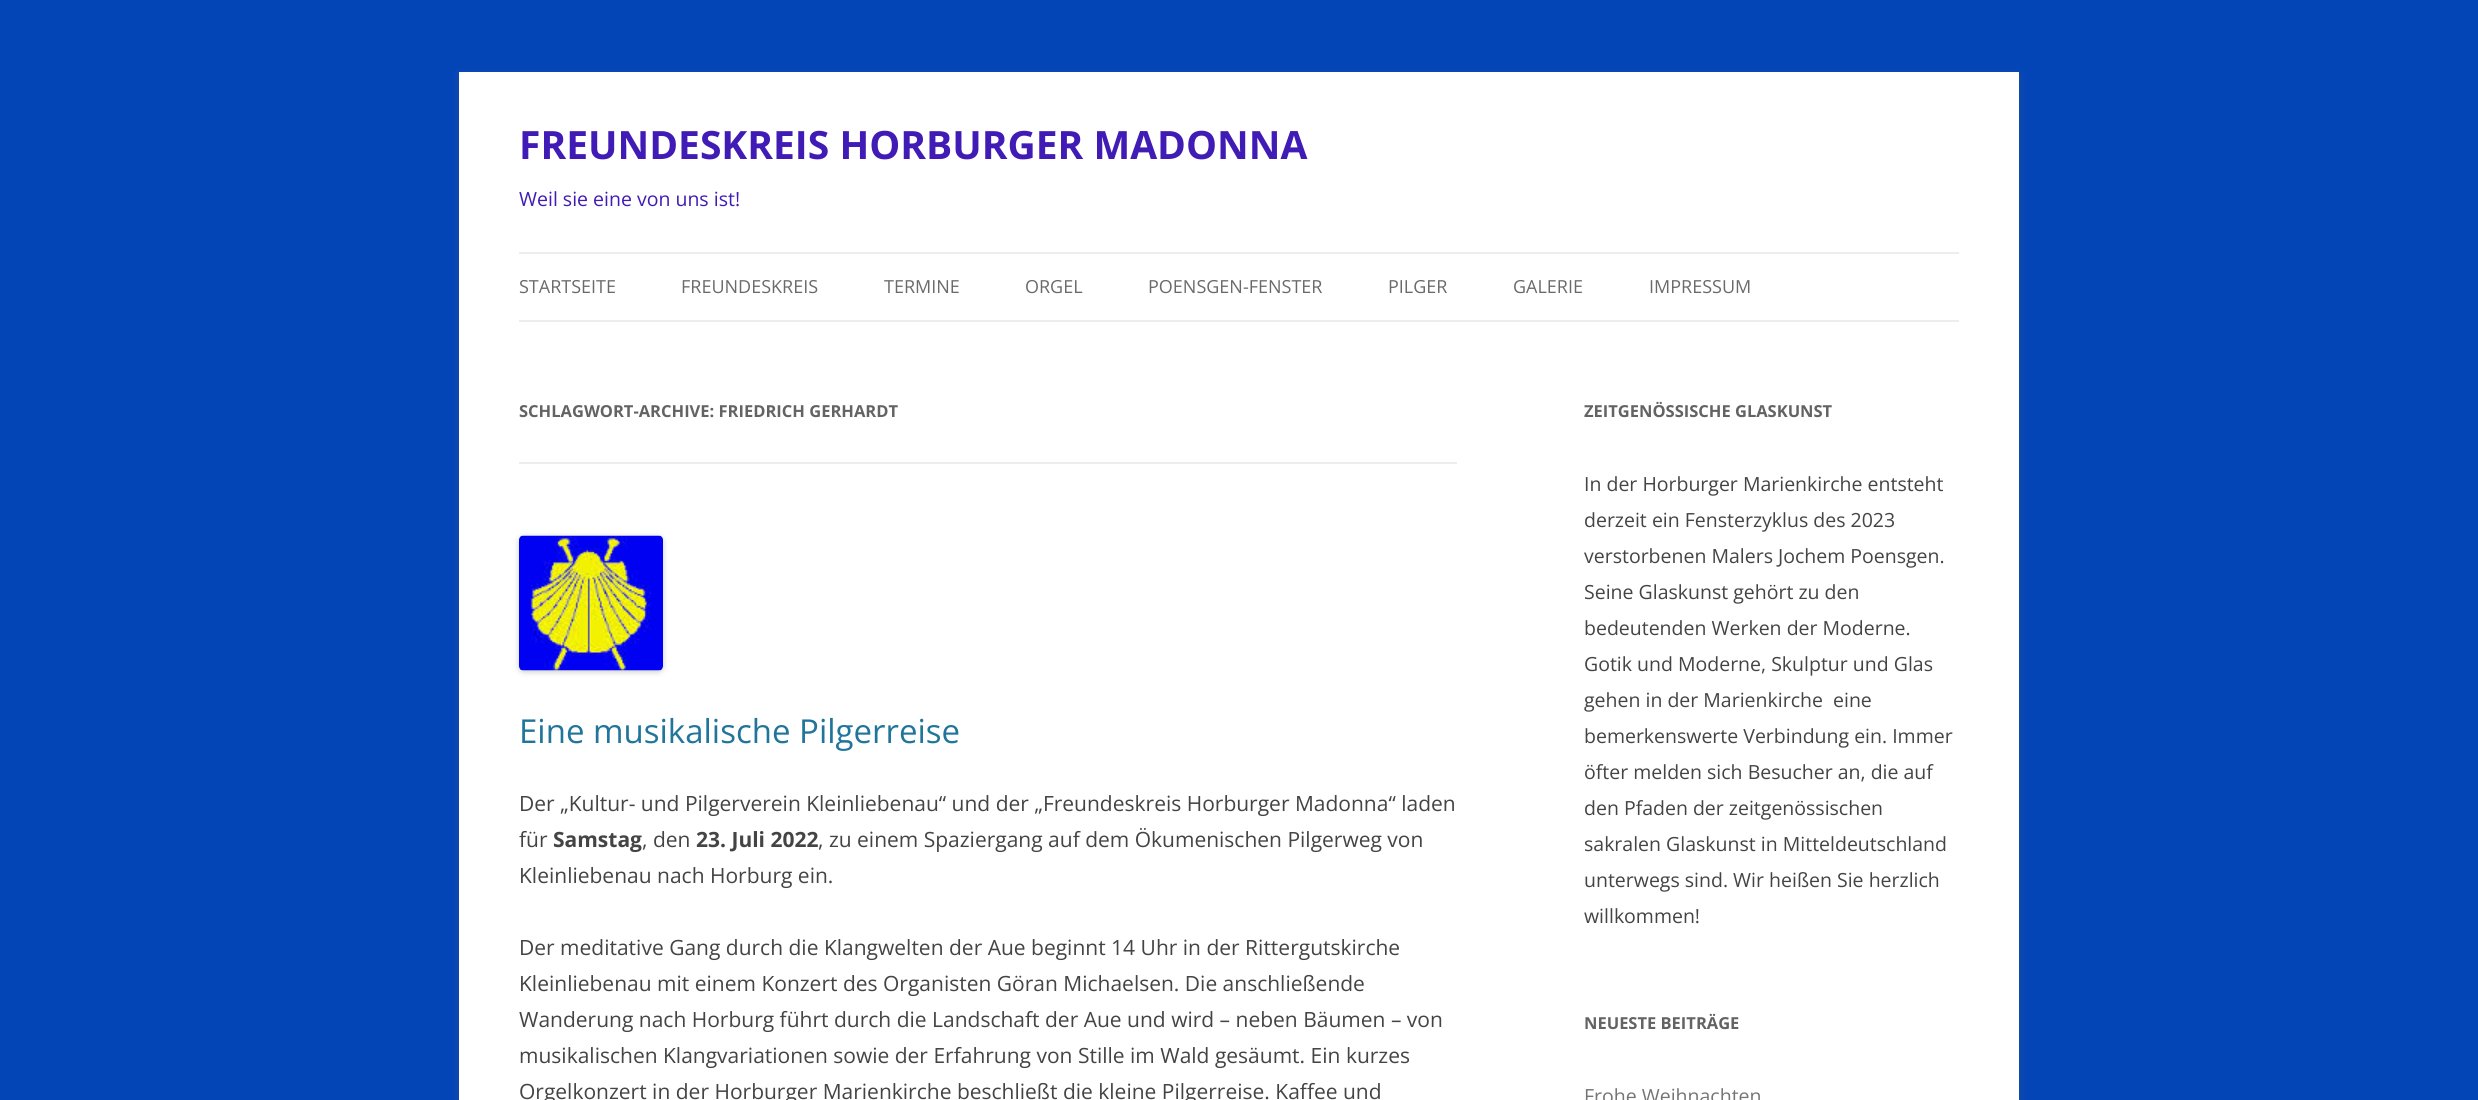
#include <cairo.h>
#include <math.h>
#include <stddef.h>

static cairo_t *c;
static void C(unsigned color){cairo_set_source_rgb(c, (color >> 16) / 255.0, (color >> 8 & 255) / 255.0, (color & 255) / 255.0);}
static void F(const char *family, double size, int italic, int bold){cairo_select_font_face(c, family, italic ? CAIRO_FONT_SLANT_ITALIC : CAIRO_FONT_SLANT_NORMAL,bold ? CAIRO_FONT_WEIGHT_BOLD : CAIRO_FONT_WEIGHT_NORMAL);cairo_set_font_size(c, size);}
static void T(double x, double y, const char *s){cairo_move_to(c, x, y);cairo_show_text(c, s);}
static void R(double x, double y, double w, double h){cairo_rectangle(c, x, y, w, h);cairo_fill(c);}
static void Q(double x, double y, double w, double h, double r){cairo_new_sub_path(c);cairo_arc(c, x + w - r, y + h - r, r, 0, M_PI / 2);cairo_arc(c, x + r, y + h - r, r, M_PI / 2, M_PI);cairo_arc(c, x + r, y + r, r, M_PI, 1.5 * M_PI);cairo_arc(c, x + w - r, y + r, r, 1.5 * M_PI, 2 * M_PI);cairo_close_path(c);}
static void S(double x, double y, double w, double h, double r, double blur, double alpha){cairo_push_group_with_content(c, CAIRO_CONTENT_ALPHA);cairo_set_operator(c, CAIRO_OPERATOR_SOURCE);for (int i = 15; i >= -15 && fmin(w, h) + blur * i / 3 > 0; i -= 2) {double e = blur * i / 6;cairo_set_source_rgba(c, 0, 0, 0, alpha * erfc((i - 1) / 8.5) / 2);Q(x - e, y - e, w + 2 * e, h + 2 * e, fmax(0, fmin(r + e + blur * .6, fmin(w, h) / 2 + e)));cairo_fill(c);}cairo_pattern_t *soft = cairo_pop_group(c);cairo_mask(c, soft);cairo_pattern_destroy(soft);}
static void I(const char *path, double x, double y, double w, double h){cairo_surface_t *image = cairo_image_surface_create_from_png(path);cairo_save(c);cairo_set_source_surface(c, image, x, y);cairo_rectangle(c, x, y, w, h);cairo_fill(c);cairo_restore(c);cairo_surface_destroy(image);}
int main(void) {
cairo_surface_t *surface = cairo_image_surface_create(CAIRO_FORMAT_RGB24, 2478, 1100);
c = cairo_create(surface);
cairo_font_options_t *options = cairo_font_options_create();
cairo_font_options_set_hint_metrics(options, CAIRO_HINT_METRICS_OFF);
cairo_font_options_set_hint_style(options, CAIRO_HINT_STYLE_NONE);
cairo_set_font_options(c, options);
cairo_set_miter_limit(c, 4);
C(0x0345b7);
cairo_paint(c);
C(0x646464);
S(459,75,1560,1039,0,4.5,.3);
C(0xffffff);
R(459,72,1560,1028);
F("Open Sans",39,0,1);
C(0x411bb5);
T(519,159,"FREUNDESKREIS HORBURGER MADONNA");
F("Open Sans",19.5,0,0);
T(519,206,"Weil sie eine von uns ist!");
C(0xededed);
R(519,252,1440,2);
R(519,320,1440,2);
F("Open Sans",18,0,0);
C(0x6a6a6a);
T(519,293,"STARTSEITE");
T(681,293,"FREUNDESKREIS");
T(884,293,"TERMINE");
T(1025,293,"ORGEL");
T(1148,293,"POENSGEN-FENSTER");
T(1388,293,"PILGER");
T(1513,293,"GALERIE");
T(1649,293,"IMPRESSUM");
C(0xededed);
R(519,462,938,2);
F("Open Sans",16.5,0,1);
C(0x636363);
T(519,417,"SCHLAGWORT-ARCHIVE: FRIEDRICH GERHARDT");
C(0x000000);
S(519,537,144,135,5,3,.2);
I("1.png",519,535,144,136);
F("Open Sans",33,0,0);
C(0x21759b);
T(519,743,"Eine musikalische Pilgerreise");
F("Open Sans",21,0,0);
C(0x444444);
T(519,811,"Der „Kultur- und Pilgerverein Kleinliebenau“ und der „Freundeskreis Horburger Madonna“ laden");
T(519,847,"für");
F("Open Sans",21,0,1);
T(553,847,"Samstag");
F("Open Sans",21,0,0);
T(642,847,", den");
F("Open Sans",21,0,1);
T(696,847,"23. Juli 2022");
F("Open Sans",21,0,0);
T(818,847,", zu einem Spaziergang auf dem Ökumenischen Pilgerweg von");
T(519,883,"Kleinliebenau nach Horburg ein.");
T(519,955,"Der meditative Gang durch die Klangwelten der Aue beginnt 14 Uhr in der Rittergutskirche");
T(519,991,"Kleinliebenau mit einem Konzert des Organisten Göran Michaelsen. Die anschließende");
T(519,1027,"Wanderung nach Horburg führt durch die Landschaft der Aue und wird – neben Bäumen – von");
T(519,1063,"musikalischen Klangvariationen sowie der Erfahrung von Stille im Wald gesäumt. Ein kurzes");
T(519,1099,"Orgelkonzert in der Horburger Marienkirche beschließt die kleine Pilgerreise. Kaffee und");
F("Open Sans",16.5,0,1);
C(0x636363);
T(1584,417,"ZEITGENÖSSISCHE GLASKUNST");
F("Open Sans",19.5,0,0);
C(0x444444);
T(1584,491,"In der Horburger Marienkirche entsteht");
T(1584,527,"derzeit ein Fensterzyklus des 2023");
T(1584,563,"verstorbenen Malers Jochem Poensgen.");
T(1584,599,"Seine Glaskunst gehört zu den");
T(1584,635,"bedeutenden Werken der Moderne.");
T(1584,671,"Gotik und Moderne, Skulptur und Glas");
T(1584,707,"gehen in der Marienkirche  eine");
T(1584,743,"bemerkenswerte Verbindung ein. Immer");
T(1584,779,"öfter melden sich Besucher an, die auf");
T(1584,815,"den Pfaden der zeitgenössischen");
T(1584,851,"sakralen Glaskunst in Mitteldeutschland");
T(1584,887,"unterwegs sind. Wir heißen Sie herzlich");
T(1584,923,"willkommen!");
F("Open Sans",16.5,0,1);
C(0x636363);
T(1584,1029,"NEUESTE BEITRÄGE");
F("Open Sans",19.5,0,0);
C(0x757575);
T(1584,1103,"Frohe Weihnachten");
cairo_surface_write_to_png(surface, "o.png");
cairo_font_options_destroy(options);
cairo_destroy(c);
cairo_surface_destroy(surface);
return 0;
}
